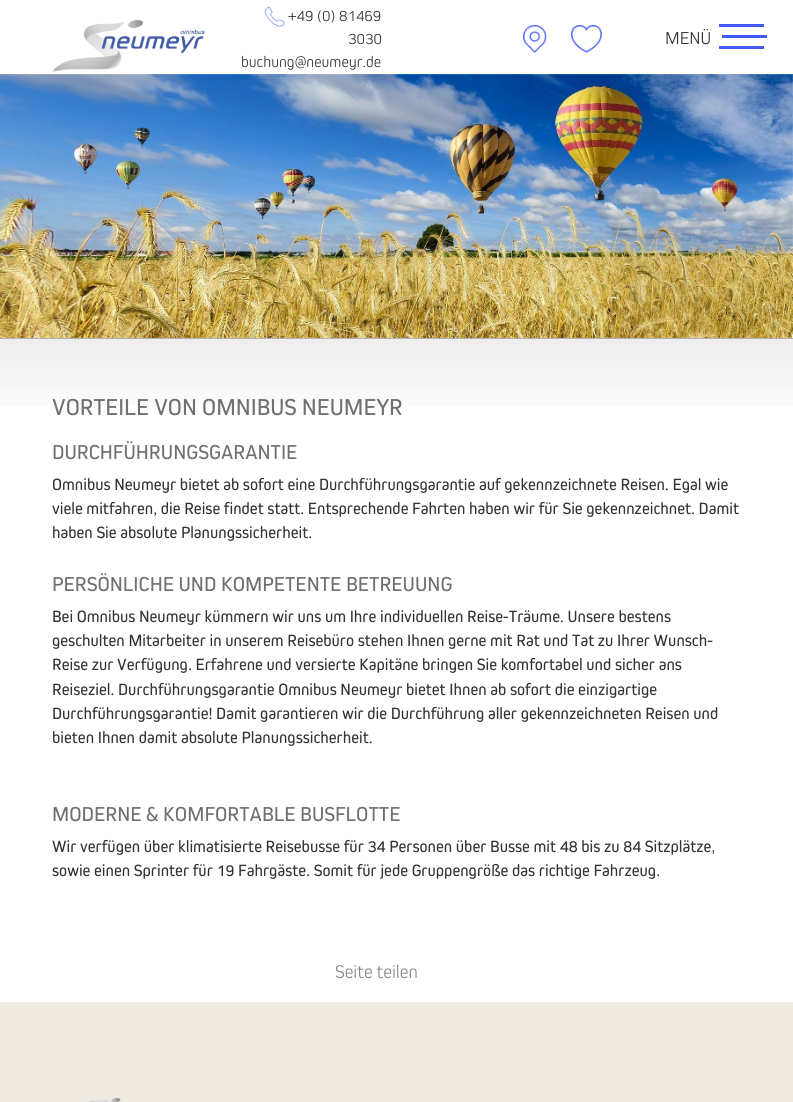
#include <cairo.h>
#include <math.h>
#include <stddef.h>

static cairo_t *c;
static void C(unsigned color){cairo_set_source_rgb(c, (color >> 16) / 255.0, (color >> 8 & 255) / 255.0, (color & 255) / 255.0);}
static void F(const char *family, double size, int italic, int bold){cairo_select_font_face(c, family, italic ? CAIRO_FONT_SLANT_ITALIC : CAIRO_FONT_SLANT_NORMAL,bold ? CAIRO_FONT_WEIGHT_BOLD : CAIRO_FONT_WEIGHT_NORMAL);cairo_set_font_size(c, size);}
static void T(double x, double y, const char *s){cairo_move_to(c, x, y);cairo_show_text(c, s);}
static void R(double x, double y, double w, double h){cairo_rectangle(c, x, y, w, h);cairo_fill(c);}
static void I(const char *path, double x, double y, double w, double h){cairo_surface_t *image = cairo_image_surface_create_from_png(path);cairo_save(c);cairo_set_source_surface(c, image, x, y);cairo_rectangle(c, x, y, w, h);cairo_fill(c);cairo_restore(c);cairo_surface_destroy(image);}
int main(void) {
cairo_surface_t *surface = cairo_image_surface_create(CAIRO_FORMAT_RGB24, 793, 1102);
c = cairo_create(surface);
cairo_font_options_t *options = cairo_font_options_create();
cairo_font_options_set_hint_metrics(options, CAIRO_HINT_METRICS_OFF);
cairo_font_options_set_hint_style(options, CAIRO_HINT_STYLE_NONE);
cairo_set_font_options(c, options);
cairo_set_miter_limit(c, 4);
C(0xffffff);
cairo_paint(c);
I("1.png",52,20,153,52);
I("2.png",264,7,21,20);
F("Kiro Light",16,0,0);
C(0x333333);
T(288,21,"+49 (0) 81469");
T(348,44,"3030");
T(241,67,"buchung@neumeyr.de");
I("3.png",523,25,24,28);
I("4.png",571,25,31,28);
F("Kiro Light",18,0,0);
T(665,44,"MENÜ");
C(0x425af5);
R(719,24,45,3);
R(722,35,45,3);
R(719,46,45,3);
I("5.png",0,74,793,264);
I("6.png",0,339,793,66);
C(0xb2b2b2);
R(0,338,793,1);
F("Kiro",24,0,0);
C(0x707070);
T(52,415,"VORTEILE VON OMNIBUS NEUMEYR");
F("Kiro",21,0,0);
T(52,459,"DURCHFÜHRUNGSGARANTIE");
F("Kiro",17,0,0);
C(0x333333);
T(52,490,"Omnibus Neumeyr bietet ab sofort eine Durchführungsgarantie auf gekennzeichnete Reisen. Egal wie");
T(52,514,"viele mitfahren, die Reise findet statt. Entsprechende Fahrten haben wir für Sie gekennzeichnet. Damit");
T(52,538,"haben Sie absolute Planungssicherheit.");
F("Kiro",21,0,0);
C(0x707070);
T(52,591,"PERSÖNLICHE UND KOMPETENTE BETREUUNG");
F("Kiro",17,0,0);
C(0x333333);
T(52,622,"Bei Omnibus Neumeyr kümmern wir uns um Ihre individuellen Reise-Träume. Unsere bestens");
T(52,646,"geschulten Mitarbeiter in unserem Reisebüro stehen Ihnen gerne mit Rat und Tat zu Ihrer Wunsch-");
T(52,670,"Reise zur Verfügung. Erfahrene und versierte Kapitäne bringen Sie komfortabel und sicher ans");
T(52,695,"Reiseziel. Durchführungsgarantie Omnibus Neumeyr bietet Ihnen ab sofort die einzigartige");
T(52,719,"Durchführungsgarantie! Damit garantieren wir die Durchführung aller gekennzeichneten Reisen und");
T(52,743,"bieten Ihnen damit absolute Planungssicherheit.");
F("Kiro",21,0,0);
C(0x707070);
T(52,821,"MODERNE & KOMFORTABLE BUSFLOTTE");
F("Kiro",17,0,0);
C(0x333333);
T(52,852,"Wir verfügen über klimatisierte Reisebusse für 34 Personen über Busse mit 48 bis zu 84 Sitzplätze,");
T(52,876,"sowie einen Sprinter für 19 Fahrgäste. Somit für jede Gruppengröße das richtige Fahrzeug.");
F("Kiro Light",19,0,0);
C(0x878787);
T(335,978,"Seite teilen");
C(0xefeae2);
R(0,1002,793,100);
I("7.png",88,1098,33,4);
cairo_surface_write_to_png(surface, "o.png");
cairo_font_options_destroy(options);
cairo_destroy(c);
cairo_surface_destroy(surface);
return 0;
}
